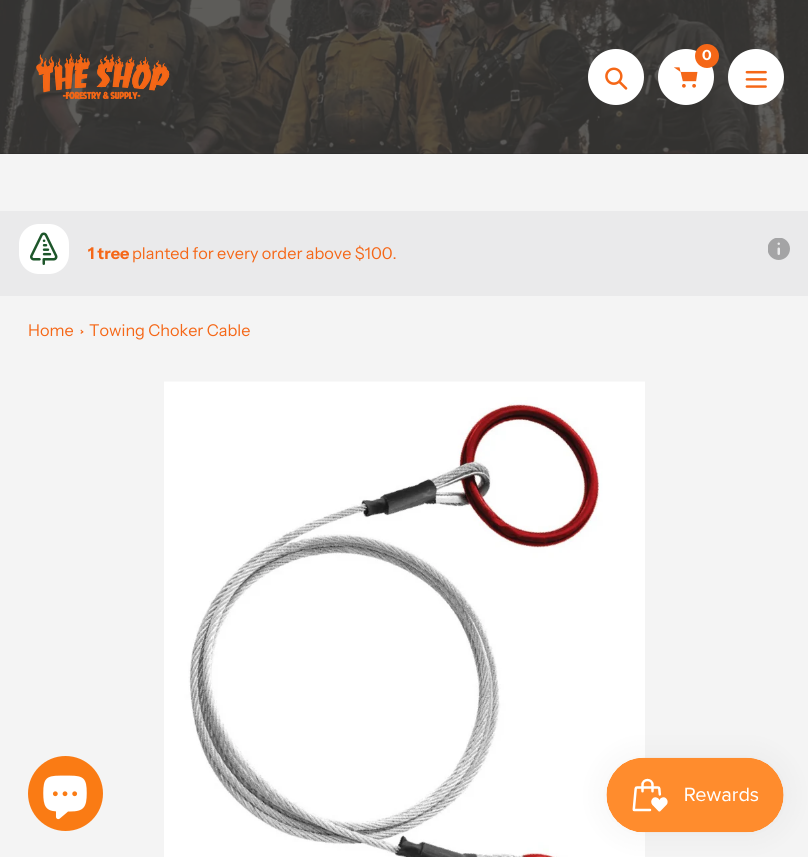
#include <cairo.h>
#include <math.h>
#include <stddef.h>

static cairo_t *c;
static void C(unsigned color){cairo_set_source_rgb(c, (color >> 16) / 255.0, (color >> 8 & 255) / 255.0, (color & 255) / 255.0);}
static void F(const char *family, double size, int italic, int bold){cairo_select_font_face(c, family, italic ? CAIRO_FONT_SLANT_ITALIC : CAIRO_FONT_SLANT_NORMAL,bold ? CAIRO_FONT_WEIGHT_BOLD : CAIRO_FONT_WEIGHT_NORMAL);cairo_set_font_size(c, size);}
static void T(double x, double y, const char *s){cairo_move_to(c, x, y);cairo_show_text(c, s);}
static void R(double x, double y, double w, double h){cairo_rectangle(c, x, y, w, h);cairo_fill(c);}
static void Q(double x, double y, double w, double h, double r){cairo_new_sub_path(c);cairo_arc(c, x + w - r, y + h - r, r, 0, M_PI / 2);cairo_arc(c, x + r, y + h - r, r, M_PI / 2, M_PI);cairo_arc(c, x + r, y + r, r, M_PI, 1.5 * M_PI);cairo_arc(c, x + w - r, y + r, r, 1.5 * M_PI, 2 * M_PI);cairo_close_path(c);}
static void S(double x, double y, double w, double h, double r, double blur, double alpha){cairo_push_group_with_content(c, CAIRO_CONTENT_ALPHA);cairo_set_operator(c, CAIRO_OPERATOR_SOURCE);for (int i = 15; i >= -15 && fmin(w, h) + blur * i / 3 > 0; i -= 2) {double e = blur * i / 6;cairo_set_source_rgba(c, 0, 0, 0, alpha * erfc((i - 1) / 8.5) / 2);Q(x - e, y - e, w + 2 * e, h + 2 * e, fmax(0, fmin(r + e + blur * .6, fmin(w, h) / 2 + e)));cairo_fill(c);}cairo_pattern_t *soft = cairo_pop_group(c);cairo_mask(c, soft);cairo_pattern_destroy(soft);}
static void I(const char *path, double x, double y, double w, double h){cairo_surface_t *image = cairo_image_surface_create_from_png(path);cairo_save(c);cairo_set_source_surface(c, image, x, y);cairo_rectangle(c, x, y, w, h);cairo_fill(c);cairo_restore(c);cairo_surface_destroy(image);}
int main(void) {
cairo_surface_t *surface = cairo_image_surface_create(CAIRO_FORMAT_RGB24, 808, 857);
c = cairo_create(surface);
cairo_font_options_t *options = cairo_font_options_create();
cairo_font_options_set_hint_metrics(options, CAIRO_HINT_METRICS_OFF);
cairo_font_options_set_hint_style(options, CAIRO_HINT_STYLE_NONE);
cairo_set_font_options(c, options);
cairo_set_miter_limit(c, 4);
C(0xf4f4f4);
cairo_paint(c);
C(0x212121);
R(0,0,808,154);
I("1.png",0,0,808,154);
I("2.png",36,53,134,46);
C(0xffffff);
cairo_arc(c,616,77,28,0,2 * M_PI);
cairo_fill(c);
I("3.png",605,67,23,23);
cairo_arc(c,686,77,28,0,2 * M_PI);
cairo_fill(c);
I("4.png",674,67,24,21);
C(0xf56717);
cairo_arc(c,707,56,12,0,2 * M_PI);
cairo_fill(c);
F("Instrument Sans",14,0,1);
C(0xffffff);
T(702,60,"0");
cairo_new_path(c);
cairo_arc(c,756,77,28,0,2 * M_PI);
cairo_fill(c);
I("5.png",745,70,22,18);
C(0xeaeaeb);
R(0,211,808,85);
I("6.png",19,224,50,50);
F("Instrument Sans",16.25,0,1);
C(0xf56717);
T(88,259,"1 tree");
F("Instrument Sans",16.25,0,0);
T(132,259,"planted for every order above $100.");
I("7.png",768,238,22,22);
T(28,336,"Home");
cairo_new_path(c);
cairo_move_to(c,81,329.5);
cairo_line_to(c,83.5,332);
cairo_line_to(c,82.5,332.5);
cairo_line_to(c,80.5,330.5);
cairo_close_path(c);
cairo_fill(c);
cairo_new_path(c);
cairo_move_to(c,82.5,331);
cairo_line_to(c,83.5,332);
cairo_line_to(c,81,334);
cairo_line_to(c,80.5,333);
cairo_close_path(c);
cairo_fill(c);
T(89,336,"Towing Choker Cable");
I("8.png",164,381,481,476);
C(0xfa7b14);
cairo_arc(c,65.5,793.5,37.5,0,2 * M_PI);
cairo_fill(c);
I("9.png",43,775,44,45);
C(0x000000);
S(606,758,178,75,37.5,15.5,.05);
I("10.png",606,757,178,76);
cairo_surface_write_to_png(surface, "o.png");
cairo_font_options_destroy(options);
cairo_destroy(c);
cairo_surface_destroy(surface);
return 0;
}
